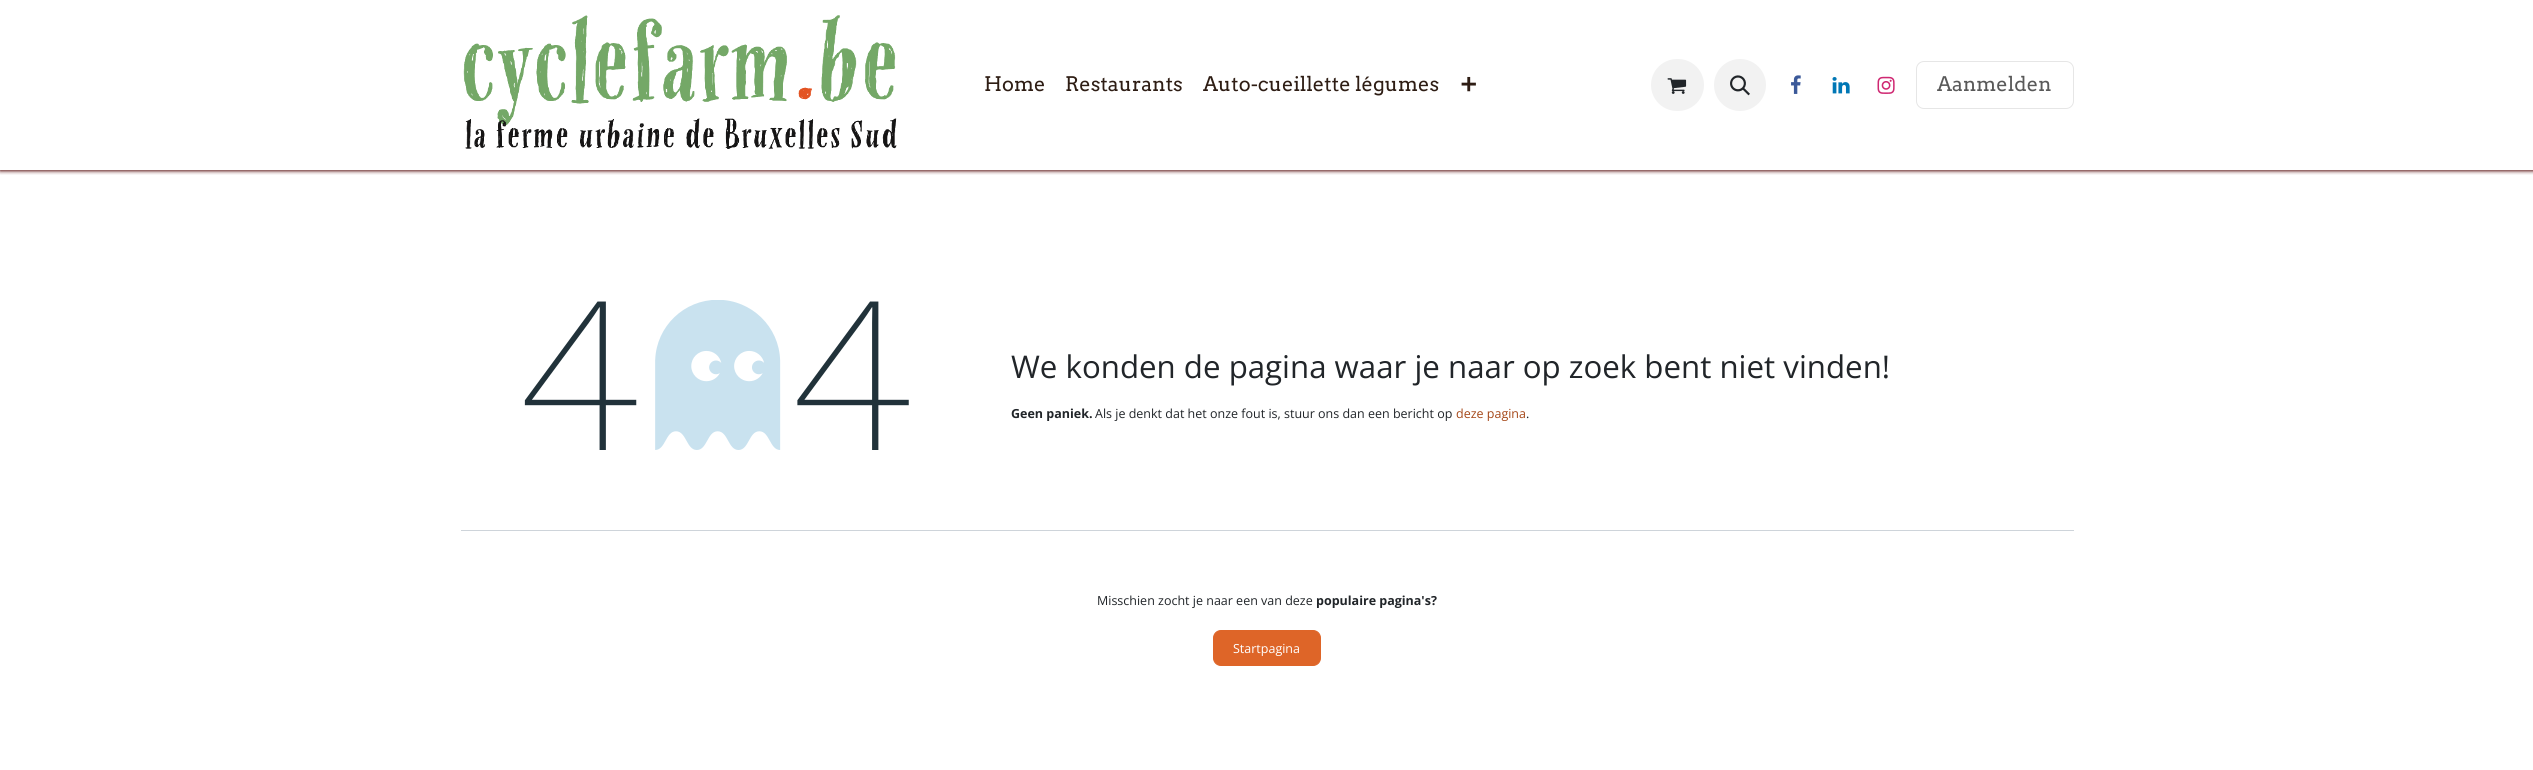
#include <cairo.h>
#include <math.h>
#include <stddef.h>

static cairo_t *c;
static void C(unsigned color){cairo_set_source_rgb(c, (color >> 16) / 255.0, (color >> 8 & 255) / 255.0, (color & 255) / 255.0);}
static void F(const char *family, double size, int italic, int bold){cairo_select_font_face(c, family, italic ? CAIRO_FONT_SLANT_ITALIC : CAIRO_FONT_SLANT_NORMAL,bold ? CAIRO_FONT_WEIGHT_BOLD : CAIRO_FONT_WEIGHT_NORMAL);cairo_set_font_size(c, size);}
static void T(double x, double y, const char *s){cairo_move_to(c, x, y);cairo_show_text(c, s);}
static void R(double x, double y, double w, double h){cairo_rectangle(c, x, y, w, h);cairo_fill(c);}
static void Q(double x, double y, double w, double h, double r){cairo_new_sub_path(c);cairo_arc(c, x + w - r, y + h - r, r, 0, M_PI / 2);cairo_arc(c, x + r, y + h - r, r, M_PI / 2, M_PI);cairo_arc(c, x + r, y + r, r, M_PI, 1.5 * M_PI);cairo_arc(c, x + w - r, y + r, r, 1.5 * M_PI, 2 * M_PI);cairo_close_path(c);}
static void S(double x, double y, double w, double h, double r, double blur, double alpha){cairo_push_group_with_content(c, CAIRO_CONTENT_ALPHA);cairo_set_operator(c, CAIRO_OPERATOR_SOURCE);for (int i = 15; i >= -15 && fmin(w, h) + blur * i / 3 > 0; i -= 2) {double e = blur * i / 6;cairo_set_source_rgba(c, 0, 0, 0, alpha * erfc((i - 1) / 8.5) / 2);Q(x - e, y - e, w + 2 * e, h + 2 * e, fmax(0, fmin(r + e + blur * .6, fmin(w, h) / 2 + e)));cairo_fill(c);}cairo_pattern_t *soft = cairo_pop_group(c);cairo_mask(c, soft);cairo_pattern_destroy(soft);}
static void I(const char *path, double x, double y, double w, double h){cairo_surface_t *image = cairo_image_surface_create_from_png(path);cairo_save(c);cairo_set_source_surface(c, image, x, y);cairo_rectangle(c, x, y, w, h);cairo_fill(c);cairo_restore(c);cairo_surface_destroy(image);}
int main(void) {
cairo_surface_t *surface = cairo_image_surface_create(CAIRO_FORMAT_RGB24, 2533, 770);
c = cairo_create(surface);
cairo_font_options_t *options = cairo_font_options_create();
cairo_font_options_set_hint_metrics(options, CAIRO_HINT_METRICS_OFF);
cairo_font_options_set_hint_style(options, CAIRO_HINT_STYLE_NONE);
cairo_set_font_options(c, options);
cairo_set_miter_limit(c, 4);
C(0xffffff);
cairo_paint(c);
cairo_save(c);
cairo_rectangle(c,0,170,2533,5);
cairo_clip(c);
C(0x4f0202);
S(0,1,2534,170,0,2,1);
cairo_restore(c);
I("1.png",463,15,434,134);
F("Arvo",20,0,0);
C(0x2e1d14);
T(984,91,"Home");
T(1065,91,"Restaurants");
T(1203,91,"Auto-cueillette légumes");
I("2.png",1461,76,15,16);
C(0xf2f2f2);
Q(1651,59,53,52,26);
cairo_fill(c);
I("3.png",1667,78,20,16);
cairo_arc(c,1740,85,26,0,2 * M_PI);
cairo_fill(c);
I("4.png",1730,75,20,21);
I("5.png",1791,75,10,19);
I("6.png",1832,77,18,17);
I("7.png",1877,76,18,18);
Q(1916.5,61.5,157,47,7.5);
C(0xe6e6e6);
cairo_set_line_width(c,1);
cairo_stroke(c);
C(0x595959);
T(1937,91,"Aanmelden");
I("8.png",524,300,385,150);
F("Open Sans",31.25,0,0);
C(0x212529);
T(1011,378,"We konden de pagina waar je naar op zoek bent niet vinden!");
F("Open Sans",12.5,0,1);
T(1011,418,"Geen paniek.");
F("Open Sans",12.5,0,0);
T(1095,418,"Als je denkt dat het onze fout is, stuur ons dan een bericht op");
C(0xa54819);
T(1456,418,"deze pagina");
C(0x212529);
T(1526,418,".");
C(0xced4da);
R(461,530,1613,1);
C(0x212529);
T(1097,605,"Misschien zocht je naar een van deze");
F("Open Sans",12.5,0,1);
T(1316,605,"populaire pagina's?");
C(0xde6528);
Q(1213.5,630.5,107,35,7.5);
cairo_fill_preserve(c);
cairo_stroke(c);
F("Open Sans",12.5,0,0);
C(0xffffff);
T(1233,653,"Startpagina");
cairo_surface_write_to_png(surface, "o.png");
cairo_font_options_destroy(options);
cairo_destroy(c);
cairo_surface_destroy(surface);
return 0;
}
